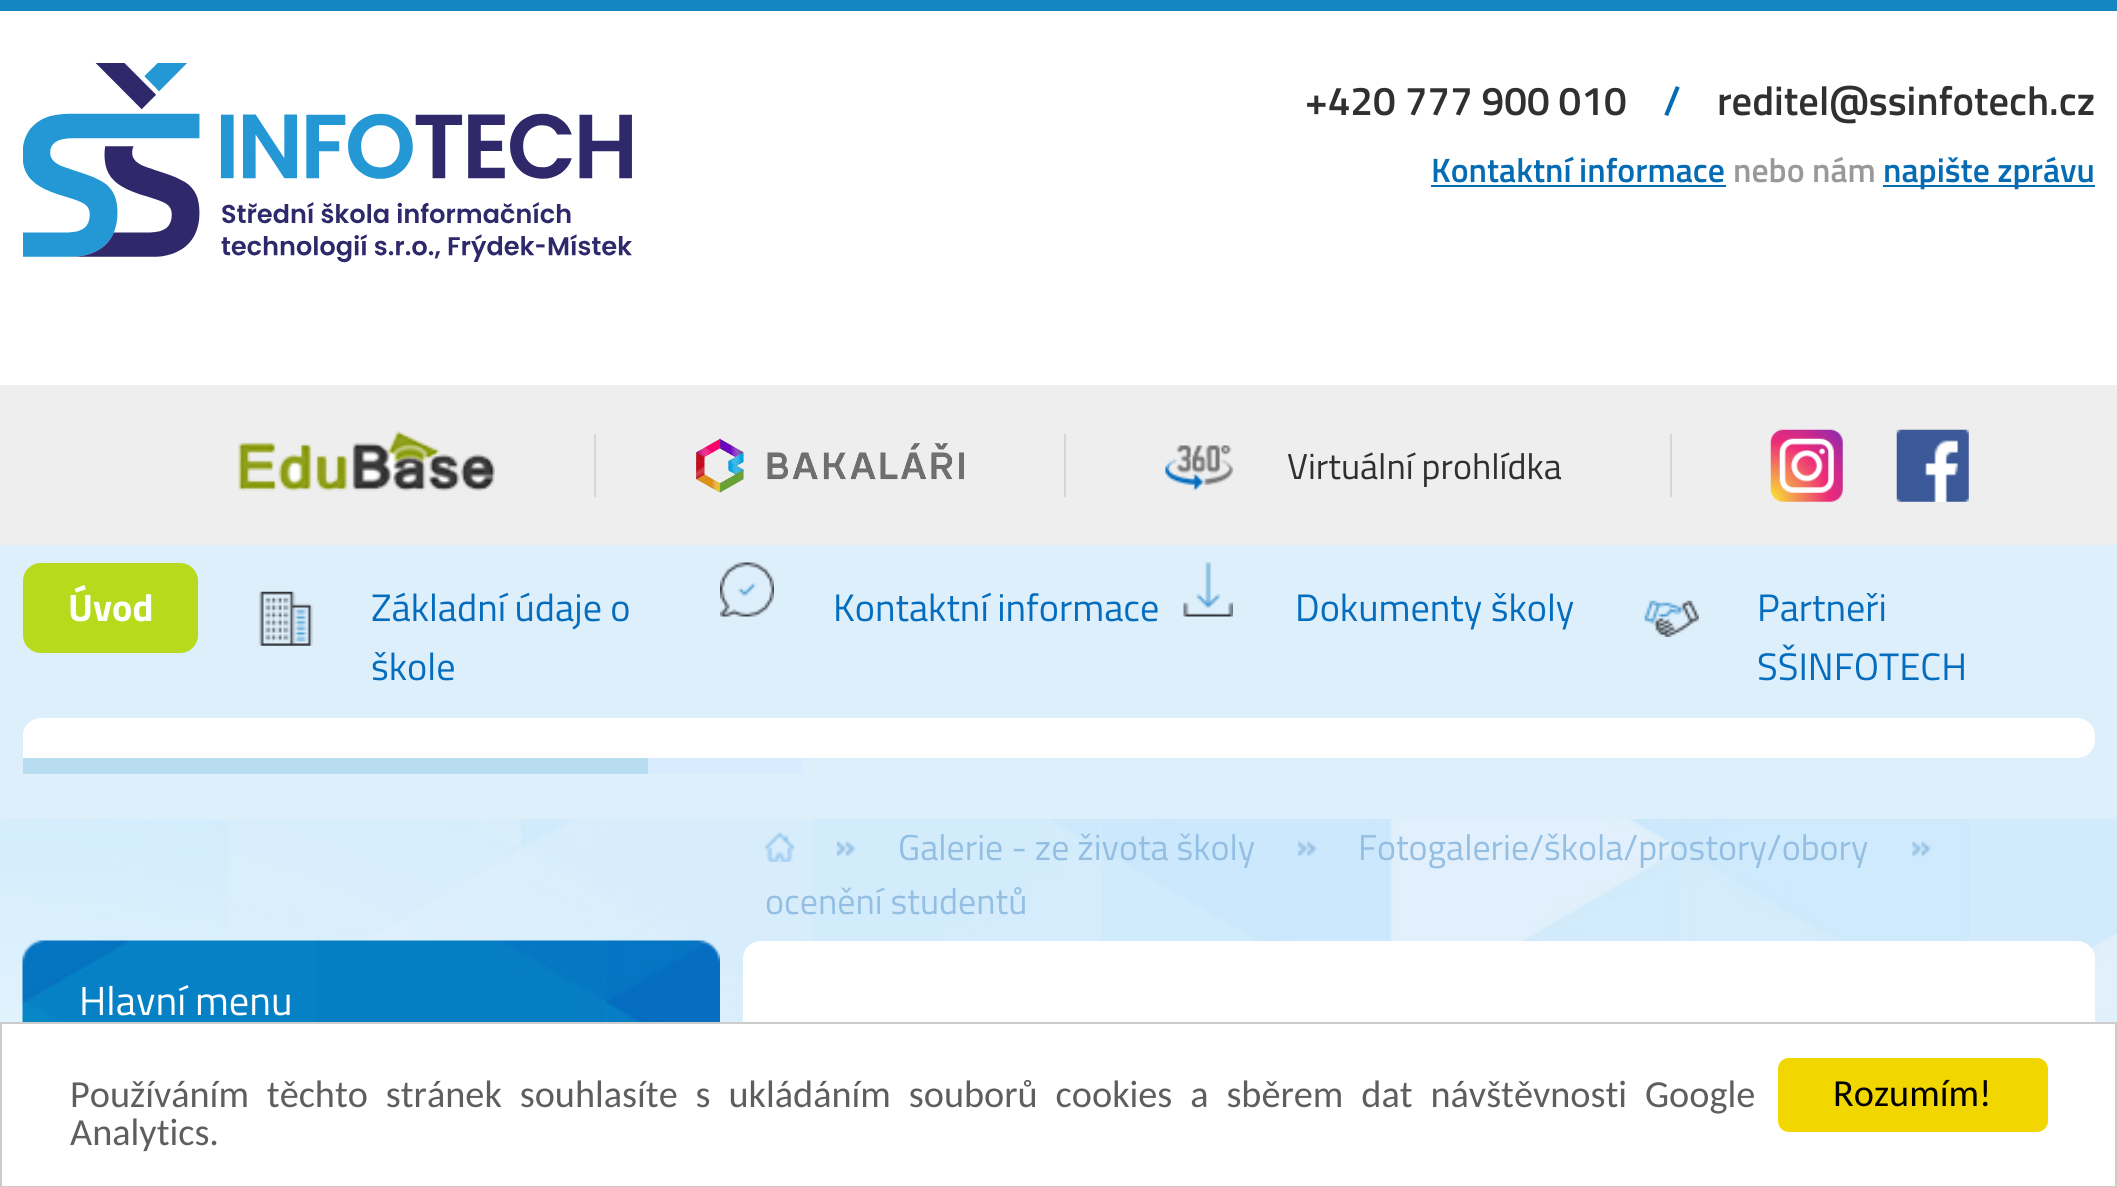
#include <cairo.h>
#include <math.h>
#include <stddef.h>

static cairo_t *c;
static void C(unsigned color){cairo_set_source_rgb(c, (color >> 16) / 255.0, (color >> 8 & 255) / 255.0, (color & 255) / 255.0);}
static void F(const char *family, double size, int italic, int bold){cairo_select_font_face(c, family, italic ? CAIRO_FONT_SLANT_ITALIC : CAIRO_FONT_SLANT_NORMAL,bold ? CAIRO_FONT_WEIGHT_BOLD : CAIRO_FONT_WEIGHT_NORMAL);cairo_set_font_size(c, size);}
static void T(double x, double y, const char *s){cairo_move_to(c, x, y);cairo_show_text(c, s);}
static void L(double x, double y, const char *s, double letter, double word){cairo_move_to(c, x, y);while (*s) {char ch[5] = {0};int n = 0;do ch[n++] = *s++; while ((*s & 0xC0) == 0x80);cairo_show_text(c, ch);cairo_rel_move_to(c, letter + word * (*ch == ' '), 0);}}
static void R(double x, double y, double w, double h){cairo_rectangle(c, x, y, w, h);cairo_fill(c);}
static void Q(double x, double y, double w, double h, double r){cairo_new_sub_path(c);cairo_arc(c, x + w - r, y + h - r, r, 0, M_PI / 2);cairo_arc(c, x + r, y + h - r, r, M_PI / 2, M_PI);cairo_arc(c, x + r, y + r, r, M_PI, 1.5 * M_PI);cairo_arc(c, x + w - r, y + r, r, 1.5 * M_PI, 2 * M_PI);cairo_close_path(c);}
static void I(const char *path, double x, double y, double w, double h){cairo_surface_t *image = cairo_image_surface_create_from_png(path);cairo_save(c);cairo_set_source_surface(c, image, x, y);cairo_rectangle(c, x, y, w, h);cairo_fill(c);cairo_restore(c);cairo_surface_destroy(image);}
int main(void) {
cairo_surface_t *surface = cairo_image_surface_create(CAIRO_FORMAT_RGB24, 2117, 1187);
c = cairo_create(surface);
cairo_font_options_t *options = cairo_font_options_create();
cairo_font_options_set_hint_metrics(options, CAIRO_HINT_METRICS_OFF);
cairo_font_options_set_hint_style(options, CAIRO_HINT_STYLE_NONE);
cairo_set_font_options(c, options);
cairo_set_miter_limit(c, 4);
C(0xffffff);
cairo_paint(c);
I("1.png",0,819,2117,203);
C(0xdeeffc);
R(0,545,2117,274);
C(0x1487c2);
R(0,0,2117,11);
I("2.png",23,63,609,200);
F("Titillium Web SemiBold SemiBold",40.5,0,0);
C(0x303030);
T(1305,115,"+420 777 900 010");
C(0x056cb3);
T(1663,115,"/");
C(0x303030);
T(1717,115,"reditel@ssinfotech.cz");
F("Titillium Web SemiBold SemiBold",33.75,0,0);
C(0x056cb3);
T(1431,182,"Kontaktní informace");
R(1431,185,295,2);
C(0x999999);
T(1733,182,"nebo nám");
C(0x056cb3);
R(1883,185,212,2);
T(1883,182,"napište zprávu");
C(0xeeeeee);
R(0,385,2117,160);
I("3.png",238,431,257,61);
C(0xd6d6d6);
R(594,434,2,63);
I("4.png",695,438,269,55);
R(1064,434,2,63);
I("5.png",1165,445,68,46);
F("Titillium Web",36,0,0);
C(0x303030);
T(1287,479,"Virtuální prohlídka");
C(0xd6d6d6);
R(1670,434,2,63);
I("6.png",1770,429,73,73);
I("7.png",1896,429,73,73);
C(0xb8da1c);
Q(23,563,175,90,18);
cairo_fill(c);
F("Titillium Web",38.25,0,1);
C(0xffffff);
T(68,621,"Úvod");
I("8.png",258,591,55,55);
F("Titillium Web",38.25,0,0);
C(0x056dbe);
T(371,621,"Základní údaje o");
T(371,680,"škole");
I("9.png",720,562,54,55);
T(833,621,"Kontaktní informace");
I("10.png",1183,562,50,55);
T(1295,621,"Dokumenty školy");
I("11.png",1644,600,55,37);
T(1757,621,"Partneři");
T(1757,680,"SŠINFOTECH");
C(0xffffff);
cairo_new_path(c);
cairo_move_to(c,41,718);
cairo_line_to(c,2077,718);
cairo_curve_to(c,2087,718,2095,726,2095,736);
cairo_line_to(c,2095,740);
cairo_curve_to(c,2095,750,2087,758,2077,758);
cairo_line_to(c,23,758);
cairo_line_to(c,23,736);
cairo_curve_to(c,23,726,31,718,41,718);
cairo_close_path(c);
cairo_fill(c);
C(0xb8ddf0);
R(23,758,625,16);
C(0xd7edff);
R(648,758,155,16);
I("12.png",765,832,30,30);
I("13.png",837,841,18,16);
F("Titillium Web",36,0,0);
C(0x94bfe3);
T(898,860,"Galerie - ze života školy");
I("14.png",1298,841,19,16);
T(1358,860,"Fotogalerie/škola/prostory/obory");
I("15.png",1912,841,19,16);
T(765,914,"ocenění studentů");
C(0xffffff);
Q(743,941,1352,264,18);
cairo_fill(c);
I("16.png",22,940,698,82);
F("Titillium Web",40.5,0,0);
T(79,1015,"Hlavní menu");
cairo_rectangle(c,1,1023,2115,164);
C(0xcccccc);
cairo_stroke(c);
F("Carlito",38.25,0,0);
C(0x5e5e5e);
L(70,1107,"Používáním těchto stránek souhlasíte s ukládáním souborů cookies a sběrem dat návštěvnosti Google",0,9.25);
T(70,1145,"Analytics.");
C(0xf1d600);
Q(1778,1058,270,74,11);
cairo_fill(c);
C(0x000000);
T(1833,1106,"Rozumím!");
cairo_surface_write_to_png(surface, "o.png");
cairo_font_options_destroy(options);
cairo_destroy(c);
cairo_surface_destroy(surface);
return 0;
}
